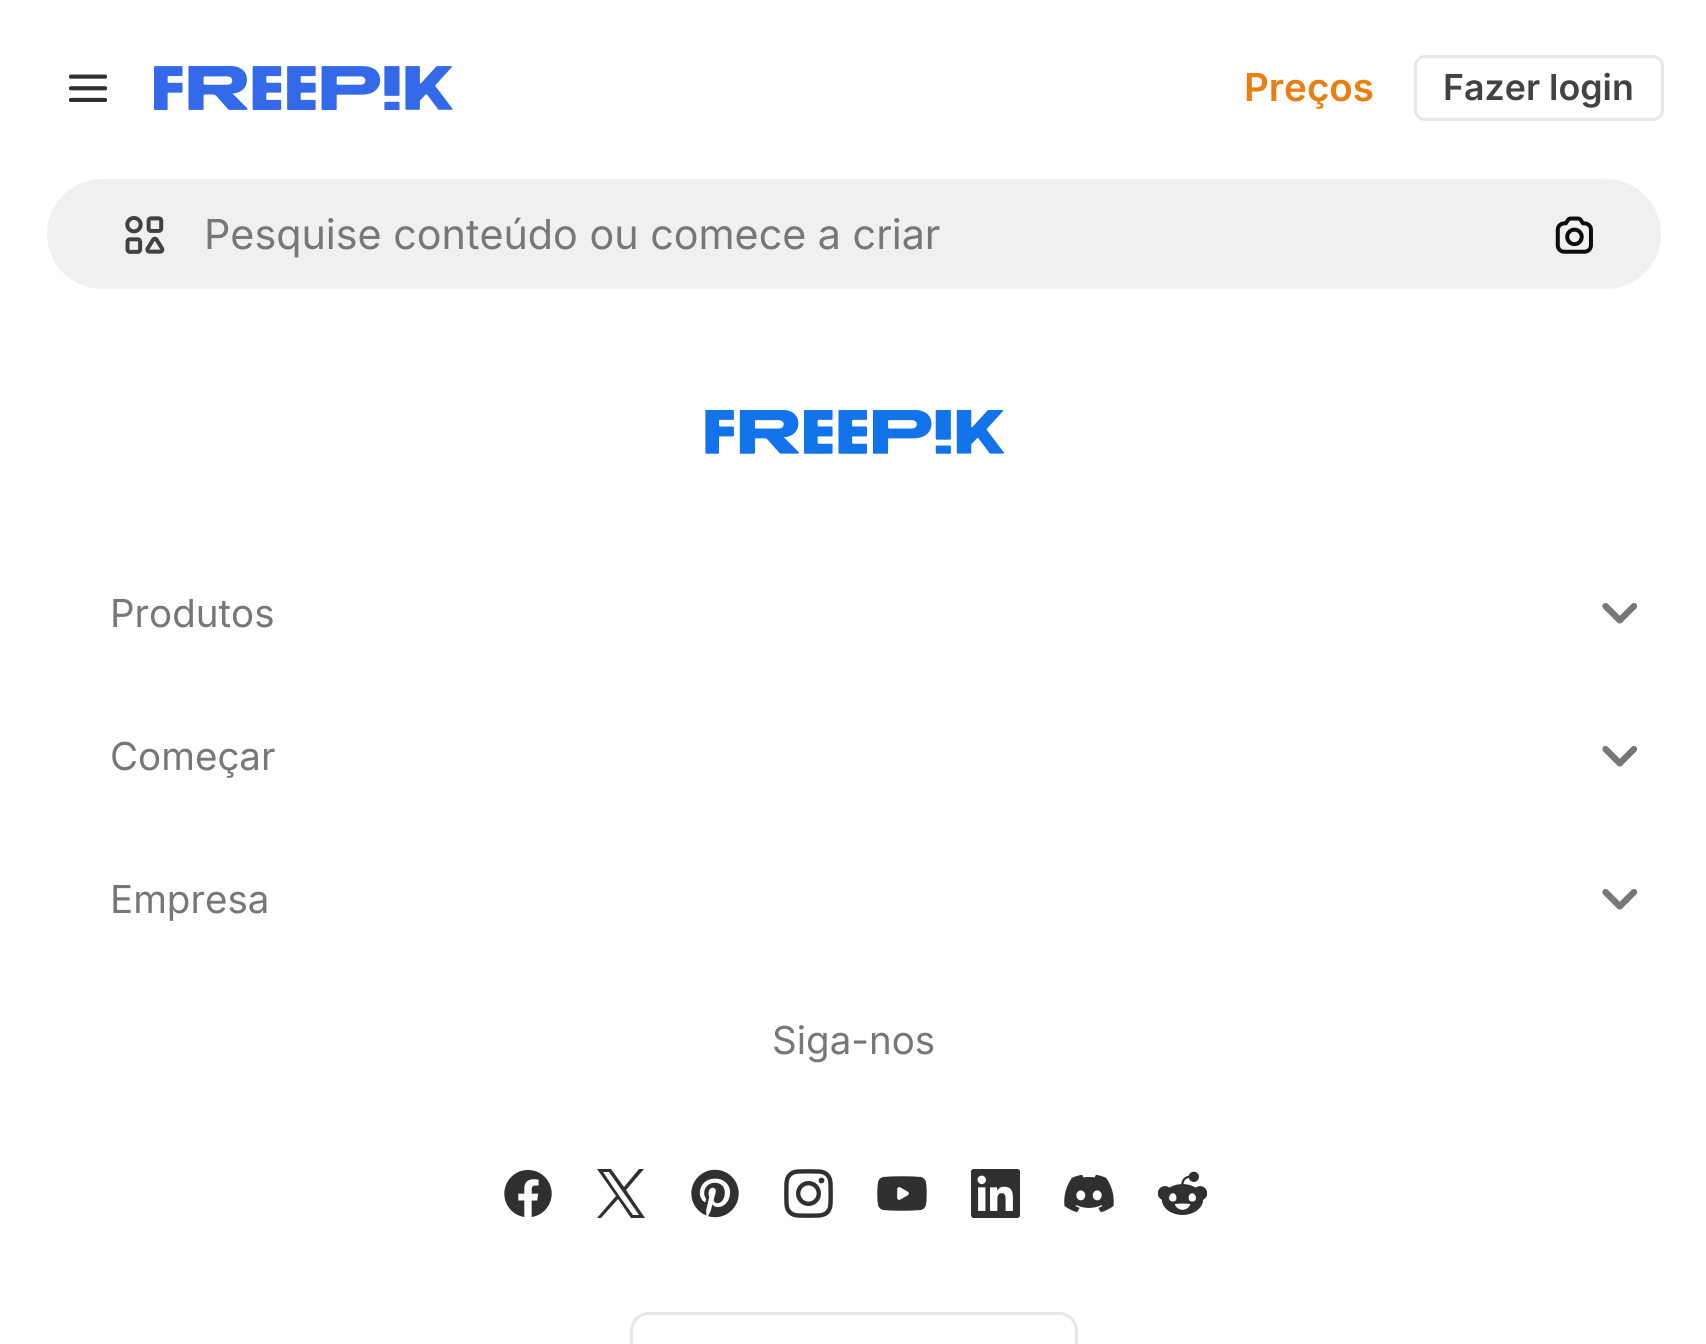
#include <cairo.h>
#include <math.h>
#include <stddef.h>

static cairo_t *c;
static void C(unsigned color){cairo_set_source_rgb(c, (color >> 16) / 255.0, (color >> 8 & 255) / 255.0, (color & 255) / 255.0);}
static void F(const char *family, double size, int italic, int bold){cairo_select_font_face(c, family, italic ? CAIRO_FONT_SLANT_ITALIC : CAIRO_FONT_SLANT_NORMAL,bold ? CAIRO_FONT_WEIGHT_BOLD : CAIRO_FONT_WEIGHT_NORMAL);cairo_set_font_size(c, size);}
static void T(double x, double y, const char *s){cairo_move_to(c, x, y);cairo_show_text(c, s);}
static void Q(double x, double y, double w, double h, double r){cairo_new_sub_path(c);cairo_arc(c, x + w - r, y + h - r, r, 0, M_PI / 2);cairo_arc(c, x + r, y + h - r, r, M_PI / 2, M_PI);cairo_arc(c, x + r, y + r, r, M_PI, 1.5 * M_PI);cairo_arc(c, x + w - r, y + r, r, 1.5 * M_PI, 2 * M_PI);cairo_close_path(c);}
static void I(const char *path, double x, double y, double w, double h){cairo_surface_t *image = cairo_image_surface_create_from_png(path);cairo_save(c);cairo_set_source_surface(c, image, x, y);cairo_rectangle(c, x, y, w, h);cairo_fill(c);cairo_restore(c);cairo_surface_destroy(image);}
int main(void) {
cairo_surface_t *surface = cairo_image_surface_create(CAIRO_FORMAT_RGB24, 1706, 1344);
c = cairo_create(surface);
cairo_font_options_t *options = cairo_font_options_create();
cairo_font_options_set_hint_metrics(options, CAIRO_HINT_METRICS_OFF);
cairo_font_options_set_hint_style(options, CAIRO_HINT_STYLE_NONE);
cairo_set_font_options(c, options);
cairo_set_miter_limit(c, 4);
C(0xffffff);
cairo_paint(c);
I("1.png",69,74,38,28);
I("2.png",154,66,299,44);
F("Inter SemiBold",38.5,0,0);
C(0xea7e11);
T(1244,101,"Preços");
Q(1415.5,56.5,247,63,9.5);
C(0xe7e7e7);
cairo_set_line_width(c,3);
cairo_stroke(c);
F("Inter SemiBold",35.75,0,0);
C(0x424242);
T(1443,100,"Fazer login");
C(0xf0f0f0);
Q(45.5,177.5,1617,113,56.5);
cairo_fill_preserve(c);
C(0xffffff);
cairo_stroke(c);
I("3.png",125,216,40,38);
F("Inter",41.25,0,0);
C(0x777777);
T(204,249,"Pesquise conteúdo ou comece a criar");
I("4.png",1555,216,38,38);
I("5.png",705,410,299,44);
F("Inter",38.5,0,0);
T(110,627,"Produtos");
I("6.png",1602,603,36,21);
T(110,770,"Começar");
I("6.png",1602,746,36,21);
T(110,913,"Empresa");
I("6.png",1602,889,36,21);
T(772,1054,"Siga-nos");
I("7.png",504,1170,48,47);
C(0x303030);
cairo_new_path(c);
cairo_move_to(c,626,1190);
cairo_line_to(c,644,1169);
cairo_line_to(c,639,1169);
cairo_line_to(c,624,1187);
cairo_line_to(c,611,1169);
cairo_line_to(c,597,1169);
cairo_line_to(c,616,1196);
cairo_line_to(c,597,1218);
cairo_line_to(c,601,1218);
cairo_line_to(c,618,1199);
cairo_line_to(c,631,1218);
cairo_line_to(c,645,1218);
cairo_close_path(c);
cairo_move_to(c,620,1197);
cairo_line_to(c,603,1172);
cairo_line_to(c,609,1172);
cairo_line_to(c,639,1215);
cairo_line_to(c,633,1215);
cairo_close_path(c);
cairo_fill(c);
I("8.png",691,1169,48,49);
I("9.png",784,1169,49,49);
I("10.png",877,1176,50,35);
I("11.png",971,1169,49,49);
I("12.png",1064,1174,50,39);
I("13.png",1158,1171,49,44);
Q(631.5,1313.5,445,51,17.5);
C(0xe6e6e6);
cairo_stroke(c);
cairo_surface_write_to_png(surface, "o.png");
cairo_font_options_destroy(options);
cairo_destroy(c);
cairo_surface_destroy(surface);
return 0;
}
